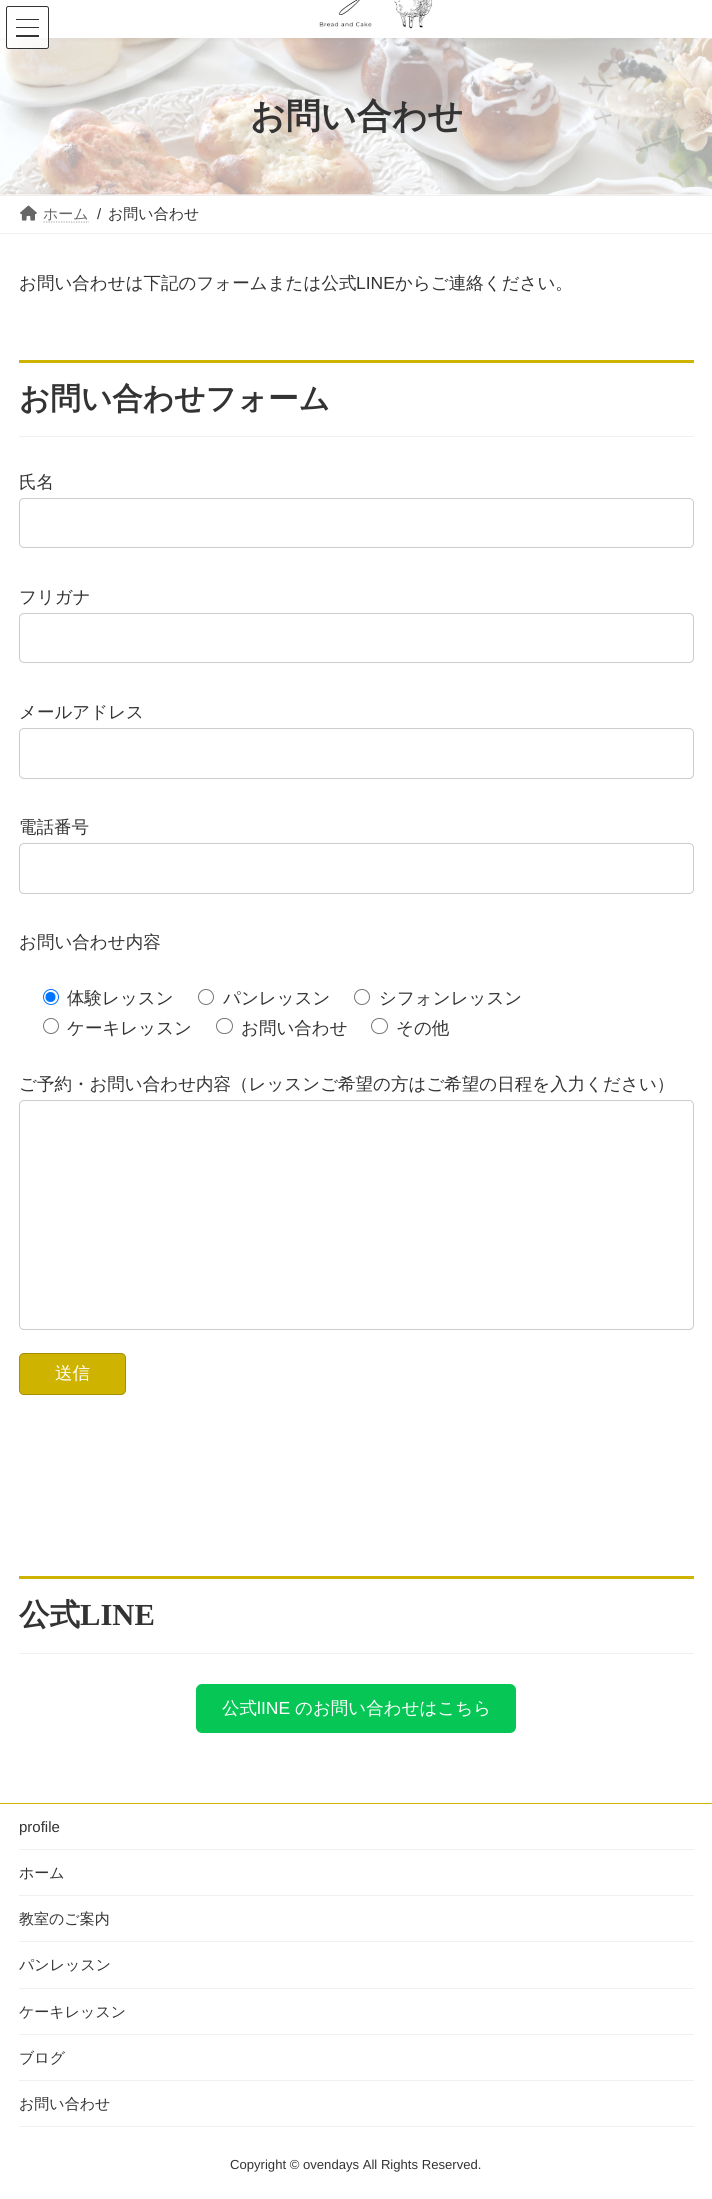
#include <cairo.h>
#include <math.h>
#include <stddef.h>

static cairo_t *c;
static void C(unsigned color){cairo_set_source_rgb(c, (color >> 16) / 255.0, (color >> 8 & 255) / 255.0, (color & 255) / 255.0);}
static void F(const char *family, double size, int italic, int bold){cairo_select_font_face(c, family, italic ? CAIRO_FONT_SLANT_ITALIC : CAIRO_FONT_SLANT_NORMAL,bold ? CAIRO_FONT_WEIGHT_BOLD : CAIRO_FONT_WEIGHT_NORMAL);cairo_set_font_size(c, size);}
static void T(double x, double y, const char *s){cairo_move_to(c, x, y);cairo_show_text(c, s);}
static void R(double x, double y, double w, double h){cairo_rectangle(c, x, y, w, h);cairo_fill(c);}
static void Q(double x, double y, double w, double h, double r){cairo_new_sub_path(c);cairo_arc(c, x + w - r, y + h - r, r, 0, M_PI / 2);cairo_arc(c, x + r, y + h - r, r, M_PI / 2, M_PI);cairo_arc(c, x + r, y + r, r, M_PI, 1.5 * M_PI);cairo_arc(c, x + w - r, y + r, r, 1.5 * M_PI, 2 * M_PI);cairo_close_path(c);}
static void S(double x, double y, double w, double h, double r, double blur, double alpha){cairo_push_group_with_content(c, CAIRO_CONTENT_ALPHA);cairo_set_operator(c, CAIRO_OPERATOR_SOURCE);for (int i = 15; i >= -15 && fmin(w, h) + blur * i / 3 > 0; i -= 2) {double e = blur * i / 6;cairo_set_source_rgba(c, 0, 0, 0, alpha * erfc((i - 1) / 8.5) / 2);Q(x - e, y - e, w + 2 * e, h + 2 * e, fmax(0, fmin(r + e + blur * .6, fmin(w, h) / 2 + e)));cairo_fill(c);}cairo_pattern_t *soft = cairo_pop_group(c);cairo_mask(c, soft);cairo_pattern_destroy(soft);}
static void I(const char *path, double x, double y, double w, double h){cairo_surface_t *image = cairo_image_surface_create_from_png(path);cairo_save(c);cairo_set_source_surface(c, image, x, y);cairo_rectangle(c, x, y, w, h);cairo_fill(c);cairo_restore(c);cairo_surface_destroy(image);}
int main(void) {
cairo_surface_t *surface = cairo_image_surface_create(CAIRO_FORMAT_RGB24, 712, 2199);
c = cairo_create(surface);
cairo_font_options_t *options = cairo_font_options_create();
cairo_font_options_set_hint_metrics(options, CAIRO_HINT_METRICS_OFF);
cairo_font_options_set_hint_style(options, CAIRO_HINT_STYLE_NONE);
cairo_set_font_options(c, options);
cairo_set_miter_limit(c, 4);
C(0xffffff);
cairo_paint(c);
I("2.png",0,38,712,157);
C(0x000000);
S(0,-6,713,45,0,2,.05);
C(0xffffff);
R(0,0,712,38);
I("1.png",319,0,114,29);
cairo_set_source_rgba(c,1,1,1,0.8);
Q(6,6,43,43,2.5);
cairo_fill(c);
C(0x333333);
R(16,19,23,1);
R(16,27,23,1);
R(16,35,23,2);
Q(6.5,6.5,42,42,2);
cairo_set_line_width(c,1);
cairo_stroke(c);
F("WenQuanYi Zen Hei",35,0,1);
T(250,128,"お問い合わせ");
C(0xf0f0f0);
R(0,195,712,1);
R(0,233,712,1);
I("3.png",20,205,17,16);
F("WenQuanYi Zen Hei Medium",15,0,0);
C(0x666666);
T(43,219,"ホーム");
cairo_new_path(c);
cairo_move_to(c,43.5,222);
cairo_line_to(c,89,222);
C(0xb3b3b3);
cairo_set_line_width(c,1.2);
cairo_set_dash(c,(double[]){1.25,1.25},2,0);
cairo_stroke(c);
F("Liberation Sans",15,0,0);
C(0x333333);
T(97,219,"/");
F("WenQuanYi Zen Hei Medium",15,0,0);
T(108,219,"お問い合わせ");
F("WenQuanYi Zen Hei Medium",17.5,0,0);
T(19,289,"お問い合わせは下記のフォームまたは公式");
F("Liberation Sans",17.5,0,0);
T(356,289,"LINE");
F("WenQuanYi Zen Hei Medium",17.5,0,0);
T(395,289,"からご連絡ください。");
C(0xceb300);
R(19,360,675,3);
C(0xf0f0f0);
R(19,436,675,1);
F("WenQuanYi Zen Hei",30.6,0,1);
C(0x333333);
T(19,409,"お問い合わせフォーム");
F("WenQuanYi Zen Hei Medium",17.5,0,0);
T(19,488,"氏名");
Q(19.5,498.5,674,49,4.5);
C(0xcccccc);
cairo_set_line_width(c,1);
cairo_set_dash(c,NULL,0,0);
cairo_stroke(c);
C(0x333333);
T(19,603,"フリガナ");
Q(19.5,613.5,674,49,4.5);
C(0xcccccc);
cairo_stroke(c);
C(0x333333);
T(19,718,"メールアドレス");
Q(19.5,728.5,674,50,4.5);
C(0xcccccc);
cairo_stroke(c);
C(0x333333);
T(19,833,"電話番号");
Q(19.5,843.5,674,50,4.5);
C(0xcccccc);
cairo_stroke(c);
C(0x333333);
T(19,948,"お問い合わせ内容");
cairo_new_path(c);
cairo_arc(c,51,997,7.5,0,2 * M_PI);
C(0x0075ff);
cairo_stroke(c);
cairo_arc(c,50.5,997,5,0,2 * M_PI);
cairo_fill(c);
C(0x333333);
T(67,1004,"体験レッスン");
cairo_new_path(c);
cairo_arc(c,206,997,7.5,0,2 * M_PI);
C(0x767676);
cairo_stroke(c);
C(0x333333);
T(223,1004,"パンレッスン");
cairo_new_path(c);
cairo_arc(c,362,997,7.5,0,2 * M_PI);
C(0x767676);
cairo_stroke(c);
C(0x333333);
T(379,1004,"シフォンレッスン");
cairo_new_path(c);
cairo_arc(c,51,1026,7.5,0,2 * M_PI);
C(0x767676);
cairo_stroke(c);
C(0x333333);
T(67,1034,"ケーキレッスン");
Q(216.5,1018.5,16,15,7.5);
C(0x767676);
cairo_stroke(c);
C(0x333333);
T(241,1034,"お問い合わせ");
Q(371.5,1018.5,16,15,7.5);
C(0x767676);
cairo_stroke(c);
C(0x333333);
T(396,1034,"その他");
T(19,1090,"ご予約・お問い合わせ内容（レッスンご希望の方はご希望の日程を入力ください）");
Q(19.5,1100.5,674,229,4.5);
C(0xcccccc);
cairo_stroke(c);
C(0xceb300);
Q(19.5,1353.5,106,41,4.5);
cairo_fill_preserve(c);
C(0xa58f00);
cairo_stroke(c);
C(0xffffff);
T(55,1379,"送信");
C(0xceb300);
R(19,1576,675,3);
C(0xf0f0f0);
R(19,1653,675,1);
F("WenQuanYi Zen Hei",30.6,0,1);
C(0x333333);
T(19,1625,"公式");
F("Liberation Serif",30.6,0,1);
T(80,1625,"LINE");
C(0x06c755);
Q(196,1684,320,49,6);
cairo_fill(c);
F("WenQuanYi Zen Hei Medium",17.5,0,0);
C(0xffffff);
T(222,1714,"公式");
F("Liberation Sans",17.5,0,0);
T(257,1714,"lINE");
F("WenQuanYi Zen Hei Medium",17.5,0,0);
T(295,1714,"のお問い合わせはこちら");
C(0xceb300);
R(0,1803,712,1);
C(0xf0f0f0);
R(19,1849,675,1);
F("Liberation Sans",15,0,0);
C(0x333333);
T(19,1832,"profile");
C(0xf0f0f0);
R(19,1895,675,1);
F("WenQuanYi Zen Hei Medium",15,0,0);
C(0x333333);
T(19,1878,"ホーム");
C(0xf0f0f0);
R(19,1941,675,1);
C(0x333333);
T(19,1924,"教室のご案内");
C(0xf0f0f0);
R(19,1988,675,1);
C(0x333333);
T(19,1970,"パンレッスン");
C(0xf0f0f0);
R(19,2034,675,1);
C(0x333333);
T(19,2017,"ケーキレッスン");
C(0xf0f0f0);
R(19,2080,675,1);
C(0x333333);
T(19,2063,"ブログ");
C(0xf0f0f0);
R(19,2126,675,1);
C(0x333333);
T(19,2109,"お問い合わせ");
F("Liberation Sans",13.1,0,0);
T(230,2169,"Copyright © ovendays All Rights Reserved.");
cairo_surface_write_to_png(surface, "o.png");
cairo_font_options_destroy(options);
cairo_destroy(c);
cairo_surface_destroy(surface);
return 0;
}
